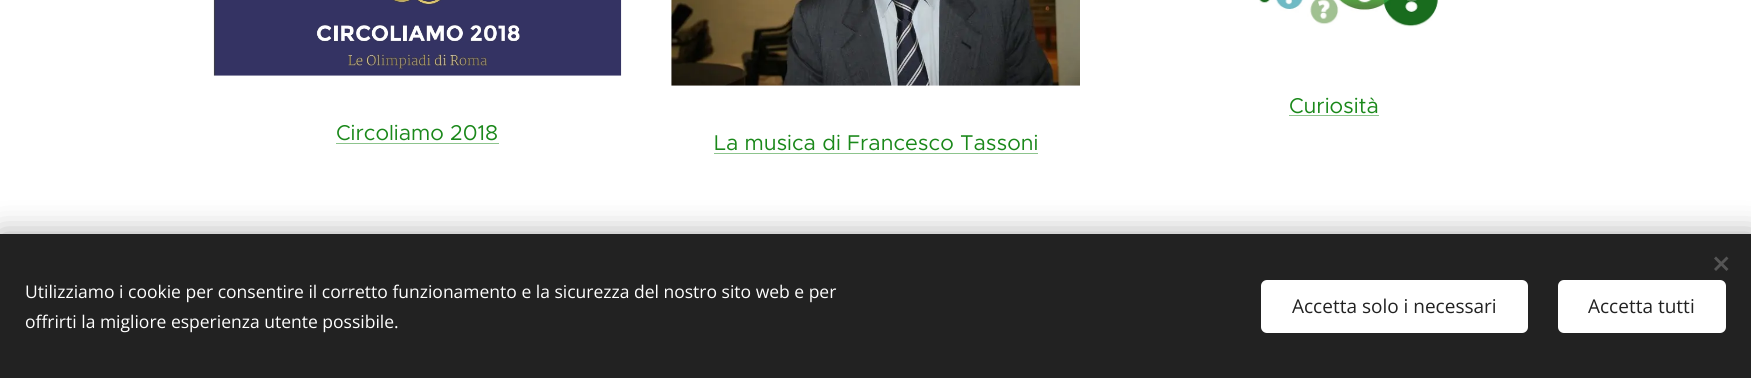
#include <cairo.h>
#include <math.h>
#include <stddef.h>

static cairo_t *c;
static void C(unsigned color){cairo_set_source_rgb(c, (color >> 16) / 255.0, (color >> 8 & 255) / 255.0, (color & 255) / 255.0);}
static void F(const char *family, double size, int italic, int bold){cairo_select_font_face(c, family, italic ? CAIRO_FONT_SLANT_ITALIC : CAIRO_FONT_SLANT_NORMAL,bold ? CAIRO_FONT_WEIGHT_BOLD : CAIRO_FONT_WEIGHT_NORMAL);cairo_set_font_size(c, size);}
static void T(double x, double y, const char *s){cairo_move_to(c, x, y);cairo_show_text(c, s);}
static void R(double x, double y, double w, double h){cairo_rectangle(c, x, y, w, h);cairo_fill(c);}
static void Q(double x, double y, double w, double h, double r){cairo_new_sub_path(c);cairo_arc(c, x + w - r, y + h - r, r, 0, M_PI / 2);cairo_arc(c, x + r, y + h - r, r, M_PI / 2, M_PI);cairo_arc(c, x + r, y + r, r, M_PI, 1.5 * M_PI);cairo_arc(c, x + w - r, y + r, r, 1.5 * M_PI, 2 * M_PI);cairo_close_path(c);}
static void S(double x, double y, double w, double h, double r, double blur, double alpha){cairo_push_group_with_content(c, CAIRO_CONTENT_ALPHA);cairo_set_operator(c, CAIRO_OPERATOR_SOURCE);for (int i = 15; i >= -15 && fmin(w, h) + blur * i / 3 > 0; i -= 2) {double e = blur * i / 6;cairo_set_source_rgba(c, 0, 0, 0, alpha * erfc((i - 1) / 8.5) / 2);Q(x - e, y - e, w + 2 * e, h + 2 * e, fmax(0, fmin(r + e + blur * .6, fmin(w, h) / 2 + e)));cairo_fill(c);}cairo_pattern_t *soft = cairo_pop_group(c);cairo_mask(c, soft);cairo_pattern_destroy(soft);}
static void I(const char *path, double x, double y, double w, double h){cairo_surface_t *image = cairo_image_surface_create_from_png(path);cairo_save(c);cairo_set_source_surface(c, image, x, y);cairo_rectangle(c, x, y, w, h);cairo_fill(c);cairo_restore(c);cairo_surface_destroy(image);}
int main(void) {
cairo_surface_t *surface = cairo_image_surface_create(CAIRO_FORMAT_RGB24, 1751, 378);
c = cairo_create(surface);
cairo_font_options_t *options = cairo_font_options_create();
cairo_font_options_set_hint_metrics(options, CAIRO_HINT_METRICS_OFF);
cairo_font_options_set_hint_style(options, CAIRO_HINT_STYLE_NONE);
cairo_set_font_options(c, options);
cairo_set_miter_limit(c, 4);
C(0xffffff);
cairo_paint(c);
I("1.png",1259,0,180,27);
F("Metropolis",21.5,0,0);
C(0x1a881a);
T(1289,113,"Curiosità");
C(0x8dc48d);
R(1289,115,90,1);
I("2.png",213,0,409,76);
C(0x1a881a);
T(336,140,"Circoliamo 2018");
C(0x8dc48d);
R(336,143,163,1);
I("3.png",671,0,409,86);
C(0x1a881a);
T(714,150,"La musica di Francesco Tassoni");
C(0x8dc48d);
R(714,153,324,1);
C(0x000000);
S(0,234,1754,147,0,15.5,.33);
C(0x222222);
R(0,234,1751,144);
C(0x555555);
cairo_new_path(c);
cairo_move_to(c,1714,269);
cairo_line_to(c,1726.5,256.5);
cairo_line_to(c,1728.5,258.5);
cairo_line_to(c,1716,271);
cairo_close_path(c);
cairo_fill(c);
cairo_new_path(c);
cairo_move_to(c,1716,256.5);
cairo_line_to(c,1728.5,269);
cairo_line_to(c,1726.5,271);
cairo_line_to(c,1714,258.5);
cairo_close_path(c);
cairo_fill(c);
F("Open Sans",17.5,0,0);
C(0xffffff);
T(25,298,"Utilizziamo i cookie per consentire il corretto funzionamento e la sicurezza del nostro sito web e per");
T(25,328,"offrirti la migliore esperienza utente possibile.");
Q(1261,280,267,53,6);
cairo_fill(c);
F("Open Sans",19,0,0);
C(0x222222);
T(1292,313,"Accetta solo i necessari");
C(0xffffff);
Q(1558,280,168,53,6);
cairo_fill(c);
C(0x222222);
T(1588,313,"Accetta tutti");
cairo_surface_write_to_png(surface, "o.png");
cairo_font_options_destroy(options);
cairo_destroy(c);
cairo_surface_destroy(surface);
return 0;
}
